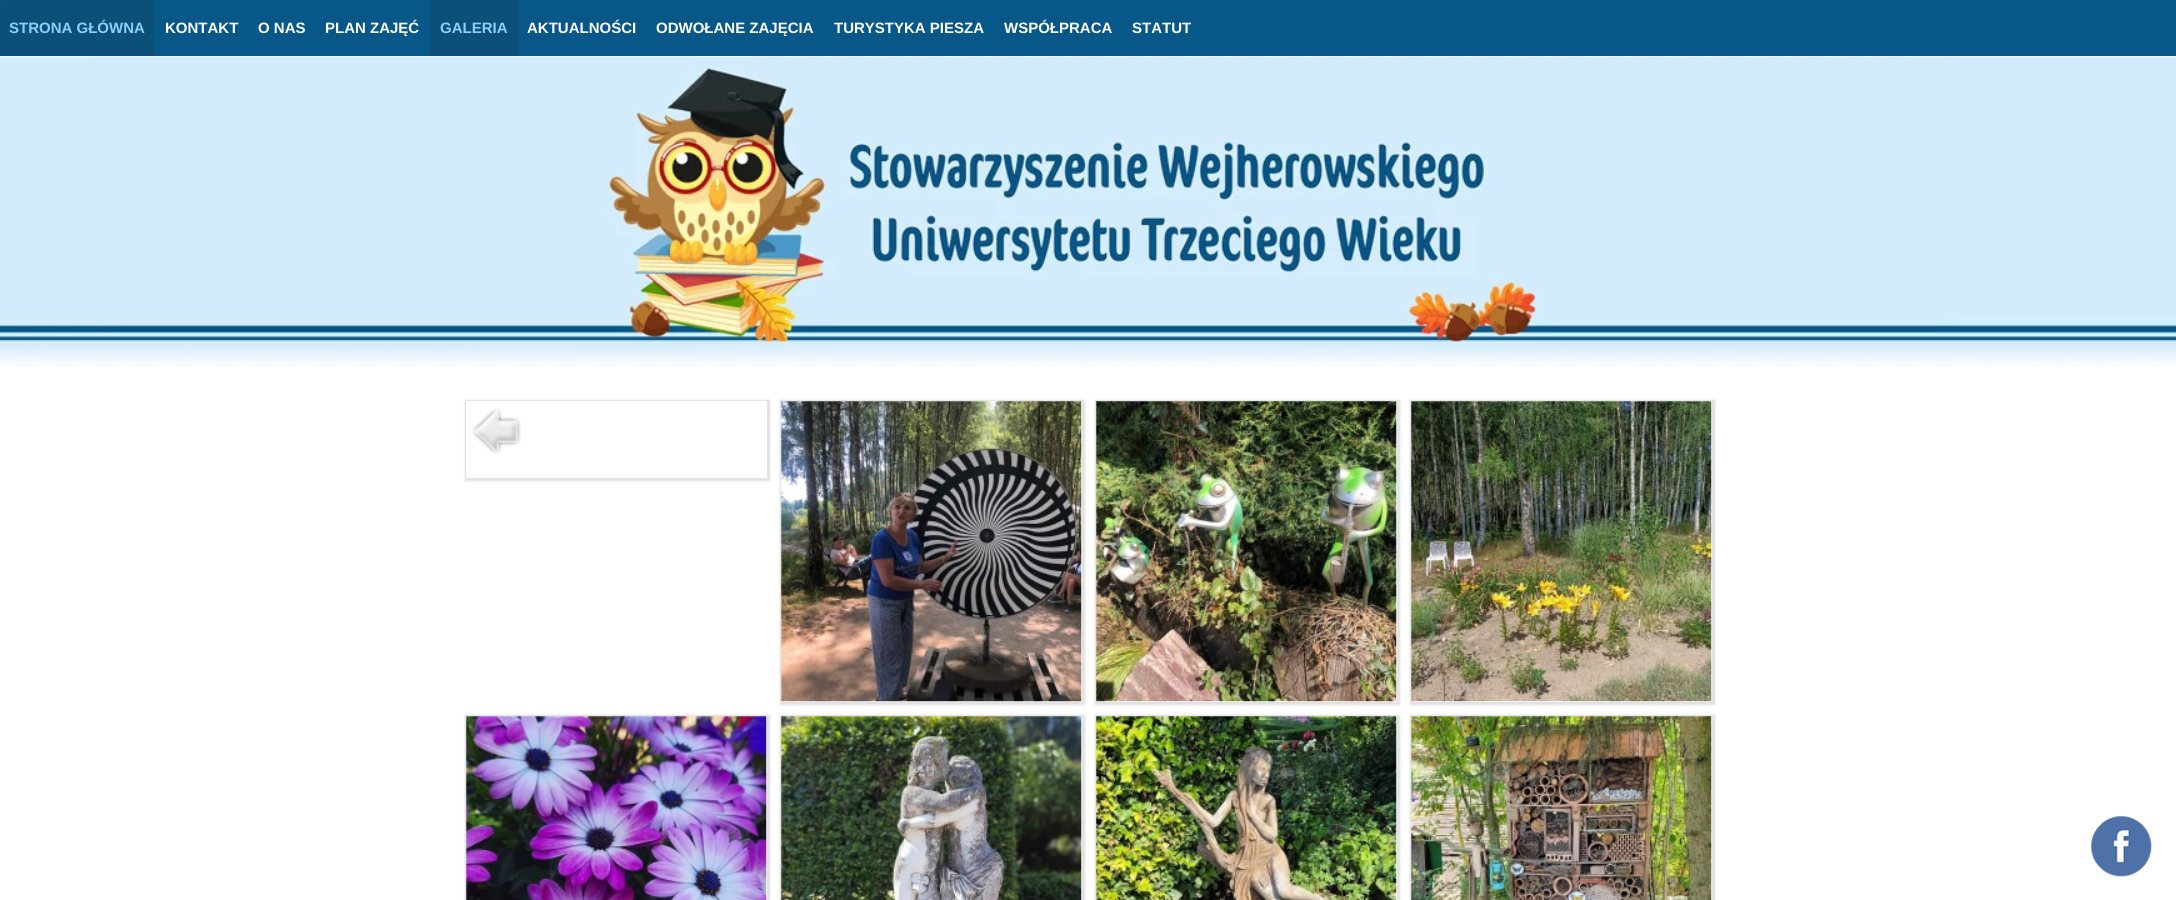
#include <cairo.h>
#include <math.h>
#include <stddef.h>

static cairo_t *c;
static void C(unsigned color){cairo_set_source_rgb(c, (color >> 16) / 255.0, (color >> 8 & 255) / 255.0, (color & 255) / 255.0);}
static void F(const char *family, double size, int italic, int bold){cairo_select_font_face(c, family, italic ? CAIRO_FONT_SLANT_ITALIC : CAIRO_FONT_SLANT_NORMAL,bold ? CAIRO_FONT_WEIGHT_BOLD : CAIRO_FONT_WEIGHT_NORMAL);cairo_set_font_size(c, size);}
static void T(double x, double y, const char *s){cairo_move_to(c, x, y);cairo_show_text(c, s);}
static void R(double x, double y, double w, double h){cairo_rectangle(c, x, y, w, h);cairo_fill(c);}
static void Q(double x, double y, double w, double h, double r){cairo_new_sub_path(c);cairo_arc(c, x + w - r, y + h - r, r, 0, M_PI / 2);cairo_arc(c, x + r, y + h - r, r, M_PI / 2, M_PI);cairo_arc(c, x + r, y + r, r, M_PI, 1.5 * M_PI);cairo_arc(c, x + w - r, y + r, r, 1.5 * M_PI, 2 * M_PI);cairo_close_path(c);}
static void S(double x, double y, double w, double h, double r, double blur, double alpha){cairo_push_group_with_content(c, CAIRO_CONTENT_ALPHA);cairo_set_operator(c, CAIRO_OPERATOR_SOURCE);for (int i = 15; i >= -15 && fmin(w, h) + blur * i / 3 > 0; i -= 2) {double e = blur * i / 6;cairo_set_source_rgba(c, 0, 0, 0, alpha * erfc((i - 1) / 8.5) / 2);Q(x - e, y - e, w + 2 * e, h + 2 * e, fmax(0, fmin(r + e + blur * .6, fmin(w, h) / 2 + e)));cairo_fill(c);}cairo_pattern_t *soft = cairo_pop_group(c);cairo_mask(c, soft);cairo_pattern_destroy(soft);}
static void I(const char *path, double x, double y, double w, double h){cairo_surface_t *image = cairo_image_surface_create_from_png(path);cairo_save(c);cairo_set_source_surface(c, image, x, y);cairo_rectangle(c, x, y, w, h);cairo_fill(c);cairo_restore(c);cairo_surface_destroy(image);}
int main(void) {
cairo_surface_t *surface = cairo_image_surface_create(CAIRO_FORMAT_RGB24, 2176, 900);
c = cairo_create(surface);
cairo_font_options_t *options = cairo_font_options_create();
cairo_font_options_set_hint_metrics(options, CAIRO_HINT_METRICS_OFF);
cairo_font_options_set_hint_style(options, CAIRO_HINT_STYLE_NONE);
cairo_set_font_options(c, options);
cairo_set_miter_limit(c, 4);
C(0xffffff);
cairo_paint(c);
C(0x075789);
R(0,0,2176,56);
C(0x0c507a);
cairo_new_path(c);
cairo_move_to(c,4,0);
cairo_line_to(c,155,0);
cairo_line_to(c,155,56);
cairo_line_to(c,-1,56);
cairo_line_to(c,-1,5);
cairo_curve_to(c,-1,2,1,0,4,0);
cairo_close_path(c);
cairo_fill(c);
F("Liberation Sans",15,0,1);
C(0x89d0fd);
T(9,33,"STRONA GŁÓWNA");
C(0xffffff);
T(165,33,"KONTAKT");
T(258,33,"O NAS");
T(325,33,"PLAN ZAJĘĆ");
C(0x0c507a);
R(430,0,88,56);
C(0x89d0fd);
T(440,33,"GALERIA");
C(0xffffff);
T(527,33,"AKTUALNOŚCI");
T(656,33,"ODWOŁANE ZAJĘCIA");
T(834,33,"TURYSTYKA PIESZA");
T(1004,33,"WSPÓŁPRACA");
T(1132,33,"STATUT");
I("1.png",0,56,2176,311);
I("2.png",2091,816,61,61);
C(0xbebebe);
S(465,400,305,81,0,1,.5);
C(0xffffff);
cairo_rectangle(c,465.5,400.5,302,78);
cairo_fill_preserve(c);
C(0xe5e5e5);
cairo_set_line_width(c,1);
cairo_stroke(c);
I("3.png",472,408,49,46);
C(0xbebebe);
S(780,400,305,305,0,1,.5);
C(0xffffff);
cairo_rectangle(c,780.5,400.5,302,302);
cairo_fill_preserve(c);
C(0xe5e5e5);
cairo_stroke(c);
I("4.png",781,401,301,301);
C(0xbebebe);
S(1095,400,305,305,0,1,.5);
C(0xffffff);
cairo_rectangle(c,1095.5,400.5,302,302);
cairo_fill_preserve(c);
C(0xe5e5e5);
cairo_stroke(c);
I("5.png",1096,401,301,301);
C(0xbebebe);
S(1410,400,305,305,0,1,.5);
C(0xffffff);
cairo_rectangle(c,1410.5,400.5,302,302);
cairo_fill_preserve(c);
C(0xe5e5e5);
cairo_stroke(c);
I("6.png",1411,401,301,301);
C(0xbebebe);
S(465,715,305,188,0,1,.5);
C(0xffffff);
cairo_rectangle(c,465.5,715.5,302,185);
cairo_fill_preserve(c);
C(0xe5e5e5);
cairo_stroke(c);
I("7.png",466,716,301,184);
C(0xbebebe);
S(780,715,305,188,0,1,.5);
C(0xffffff);
cairo_rectangle(c,780.5,715.5,302,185);
cairo_fill_preserve(c);
C(0xe5e5e5);
cairo_stroke(c);
I("8.png",781,716,301,184);
C(0xbebebe);
S(1095,715,305,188,0,1,.5);
C(0xffffff);
cairo_rectangle(c,1095.5,715.5,302,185);
cairo_fill_preserve(c);
C(0xe5e5e5);
cairo_stroke(c);
I("9.png",1096,716,301,184);
C(0xbebebe);
S(1410,715,305,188,0,1,.5);
C(0xffffff);
cairo_rectangle(c,1410.5,715.5,302,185);
cairo_fill_preserve(c);
C(0xe5e5e5);
cairo_stroke(c);
I("10.png",1411,716,301,184);
cairo_surface_write_to_png(surface, "o.png");
cairo_font_options_destroy(options);
cairo_destroy(c);
cairo_surface_destroy(surface);
return 0;
}
